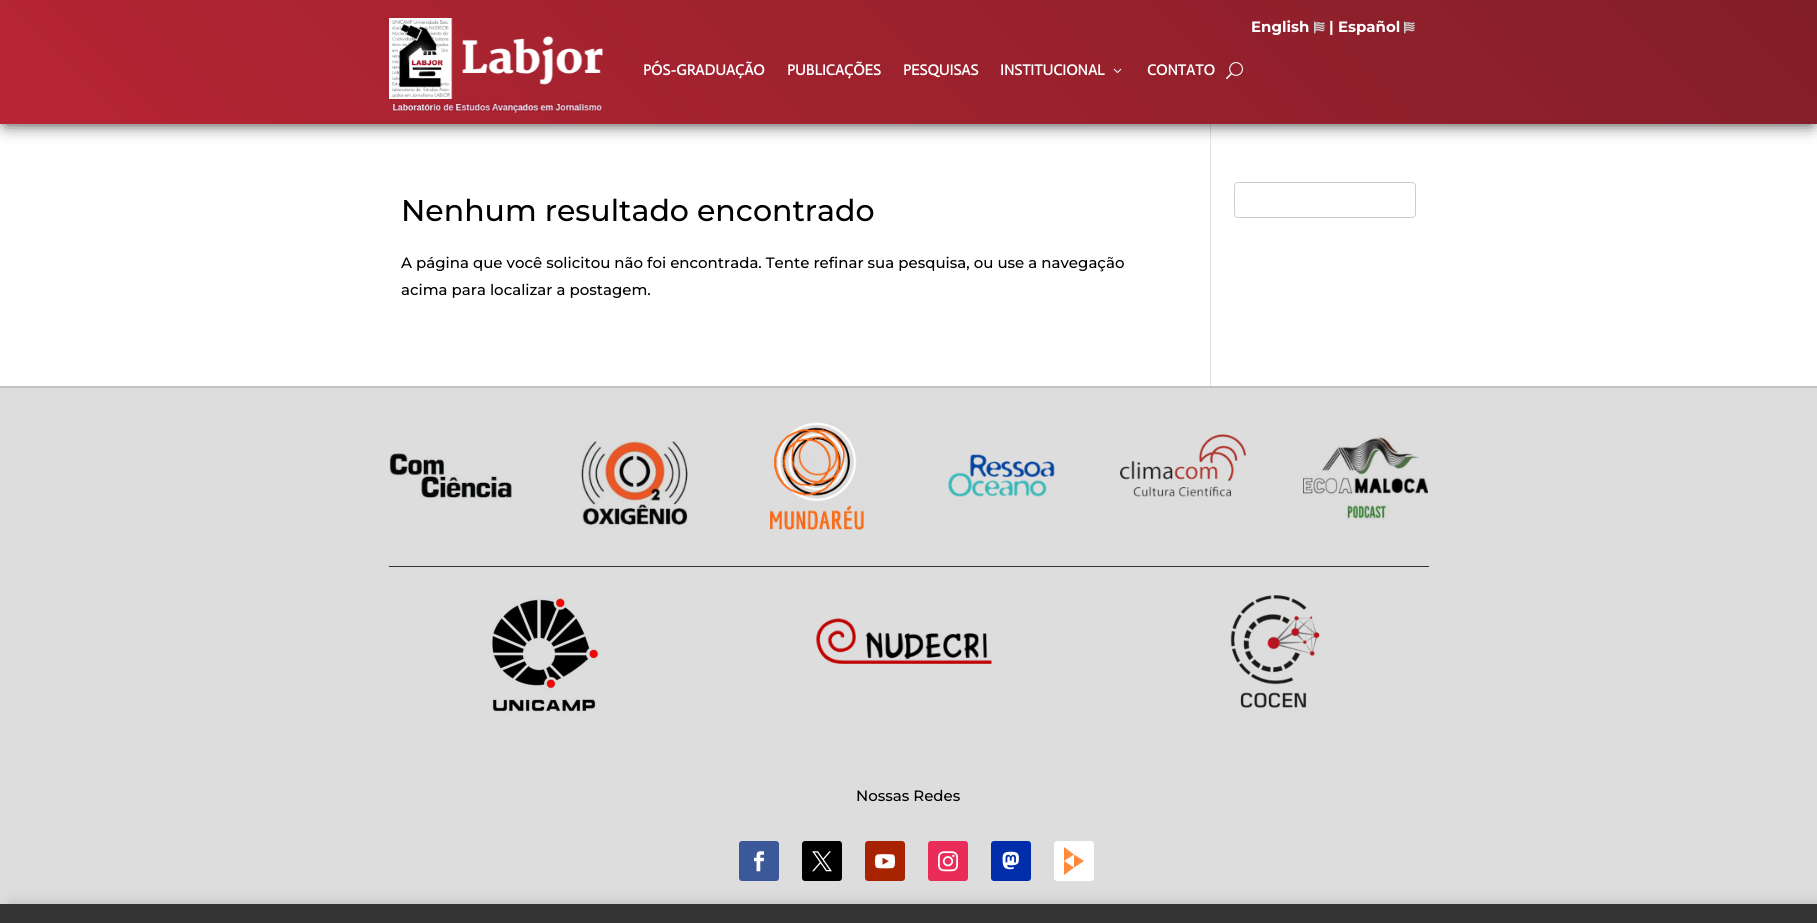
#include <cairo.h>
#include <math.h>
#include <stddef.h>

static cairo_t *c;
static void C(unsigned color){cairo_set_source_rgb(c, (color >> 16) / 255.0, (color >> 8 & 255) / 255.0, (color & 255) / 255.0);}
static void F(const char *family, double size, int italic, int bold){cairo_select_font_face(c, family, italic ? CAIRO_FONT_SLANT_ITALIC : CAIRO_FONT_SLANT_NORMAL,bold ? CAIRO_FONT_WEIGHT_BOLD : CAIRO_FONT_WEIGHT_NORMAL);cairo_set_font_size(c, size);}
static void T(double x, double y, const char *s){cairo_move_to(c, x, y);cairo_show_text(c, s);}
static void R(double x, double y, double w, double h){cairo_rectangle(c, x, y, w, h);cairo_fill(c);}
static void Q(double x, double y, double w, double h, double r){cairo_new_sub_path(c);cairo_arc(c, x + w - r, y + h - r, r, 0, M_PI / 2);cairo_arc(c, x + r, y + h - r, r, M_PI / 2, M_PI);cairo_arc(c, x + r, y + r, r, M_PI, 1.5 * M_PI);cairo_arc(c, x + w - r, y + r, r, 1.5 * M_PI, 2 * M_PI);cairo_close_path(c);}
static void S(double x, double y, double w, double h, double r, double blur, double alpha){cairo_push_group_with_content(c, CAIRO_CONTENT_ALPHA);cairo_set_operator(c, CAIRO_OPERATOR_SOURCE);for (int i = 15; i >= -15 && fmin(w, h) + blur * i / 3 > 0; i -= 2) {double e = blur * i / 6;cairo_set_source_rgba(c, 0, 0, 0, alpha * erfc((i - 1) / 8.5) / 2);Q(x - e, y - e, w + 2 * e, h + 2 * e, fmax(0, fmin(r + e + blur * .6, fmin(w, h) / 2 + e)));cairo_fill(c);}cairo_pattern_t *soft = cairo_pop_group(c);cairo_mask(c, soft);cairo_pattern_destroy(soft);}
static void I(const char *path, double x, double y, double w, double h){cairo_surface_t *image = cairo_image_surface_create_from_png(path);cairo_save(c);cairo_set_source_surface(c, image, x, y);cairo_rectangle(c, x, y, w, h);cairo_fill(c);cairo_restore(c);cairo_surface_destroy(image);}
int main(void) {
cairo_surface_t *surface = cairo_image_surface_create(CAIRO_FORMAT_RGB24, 1817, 923);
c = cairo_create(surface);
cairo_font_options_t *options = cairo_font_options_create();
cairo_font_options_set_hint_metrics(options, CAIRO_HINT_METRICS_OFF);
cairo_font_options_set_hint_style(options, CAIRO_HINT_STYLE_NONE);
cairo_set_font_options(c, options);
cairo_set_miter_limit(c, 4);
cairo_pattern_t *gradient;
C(0xffffff);
cairo_paint(c);
C(0xe2e2e2);
R(1210,124,1,262);
C(0x000000);
S(6,-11,1805,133,0,9,1);
gradient = cairo_pattern_create_linear(418,542,1399,-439);
cairo_pattern_add_color_stop_rgba(gradient,0,0.722,0.145,0.204,1);
cairo_pattern_add_color_stop_rgba(gradient,1,0.506,0.118,0.157,1);
cairo_set_source(c,gradient);
cairo_pattern_destroy(gradient);
R(0,0,1817,124);
I("1.png",389,18,214,96);
F("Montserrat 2 Thin",15,0,0);
C(0xffffff);
T(1251,32,"English");
I("2.png",1314,21,11,13);
T(1329,32,"| Español");
I("3.png",1404,21,11,13);
F("Actor",15,0,1);
T(643,75,"PÓS-GRADUAÇÃO");
T(787,75,"PUBLICAÇÕES");
T(903,75,"PESQUISAS");
T(1000,75,"INSTITUCIONAL");
I("4.png",1113,68,9,5);
T(1147,75,"CONTATO");
I("5.png",1226,62,17,18);
F("Montserrat Thin",30,0,0);
C(0x000000);
T(401,221,"Nenhum resultado encontrado");
F("Montserrat Thin",15,0,0);
T(401,268,"A página que você solicitou não foi encontrada. Tente refinar sua pesquisa, ou use a navegação");
T(401,295,"acima para localizar a postagem.");
Q(1234.5,182.5,181,35,3.5);
C(0xcccccc);
cairo_set_line_width(c,1);
cairo_stroke(c);
C(0xdddddd);
R(0,388,1817,516);
C(0xc1c1c1);
R(0,386,1817,2);
C(0x333333);
R(389,566,1040,1);
I("6.png",389,453,124,46);
I("7.png",581,440,107,88);
I("8.png",770,422,94,108);
I("9.png",948,454,107,43);
I("10.png",1120,434,126,63);
I("11.png",1303,434,125,88);
I("12.png",492,593,112,121);
I("13.png",816,618,176,46);
I("14.png",1230,595,90,113);
C(0x000000);
T(856,801,"Nossas Redes");
C(0x3b5998);
Q(739,841,40,40,3);
cairo_fill(c);
I("15.png",754,851,10,21);
C(0x000000);
Q(802,841,40,40,3);
cairo_fill(c);
I("16.png",812,851,20,21);
C(0xa82400);
Q(865,841,40,40,3);
cairo_fill(c);
I("17.png",875,854,20,15);
C(0xea2c59);
Q(928,841,40,40,3);
cairo_fill(c);
I("18.png",938,851,20,21);
C(0x002daa);
Q(991,841,40,40,3);
cairo_fill(c);
I("19.png",1002,851,17,19);
C(0xffffff);
Q(1054,841,40,40,3);
cairo_fill(c);
C(0xff8a3c);
cairo_new_path(c);
cairo_move_to(c,1074,854.5);
cairo_line_to(c,1074,867.5);
cairo_line_to(c,1084,861);
cairo_move_to(c,1064,861);
cairo_line_to(c,1064,875);
cairo_line_to(c,1074,867.5);
cairo_move_to(c,1064,847);
cairo_line_to(c,1064,861);
cairo_line_to(c,1074,854.5);
cairo_fill(c);
C(0x000000);
S(11,909,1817,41,0,9,.3);
C(0x333333);
R(0,904,1817,19);
cairo_surface_write_to_png(surface, "o.png");
cairo_font_options_destroy(options);
cairo_destroy(c);
cairo_surface_destroy(surface);
return 0;
}
